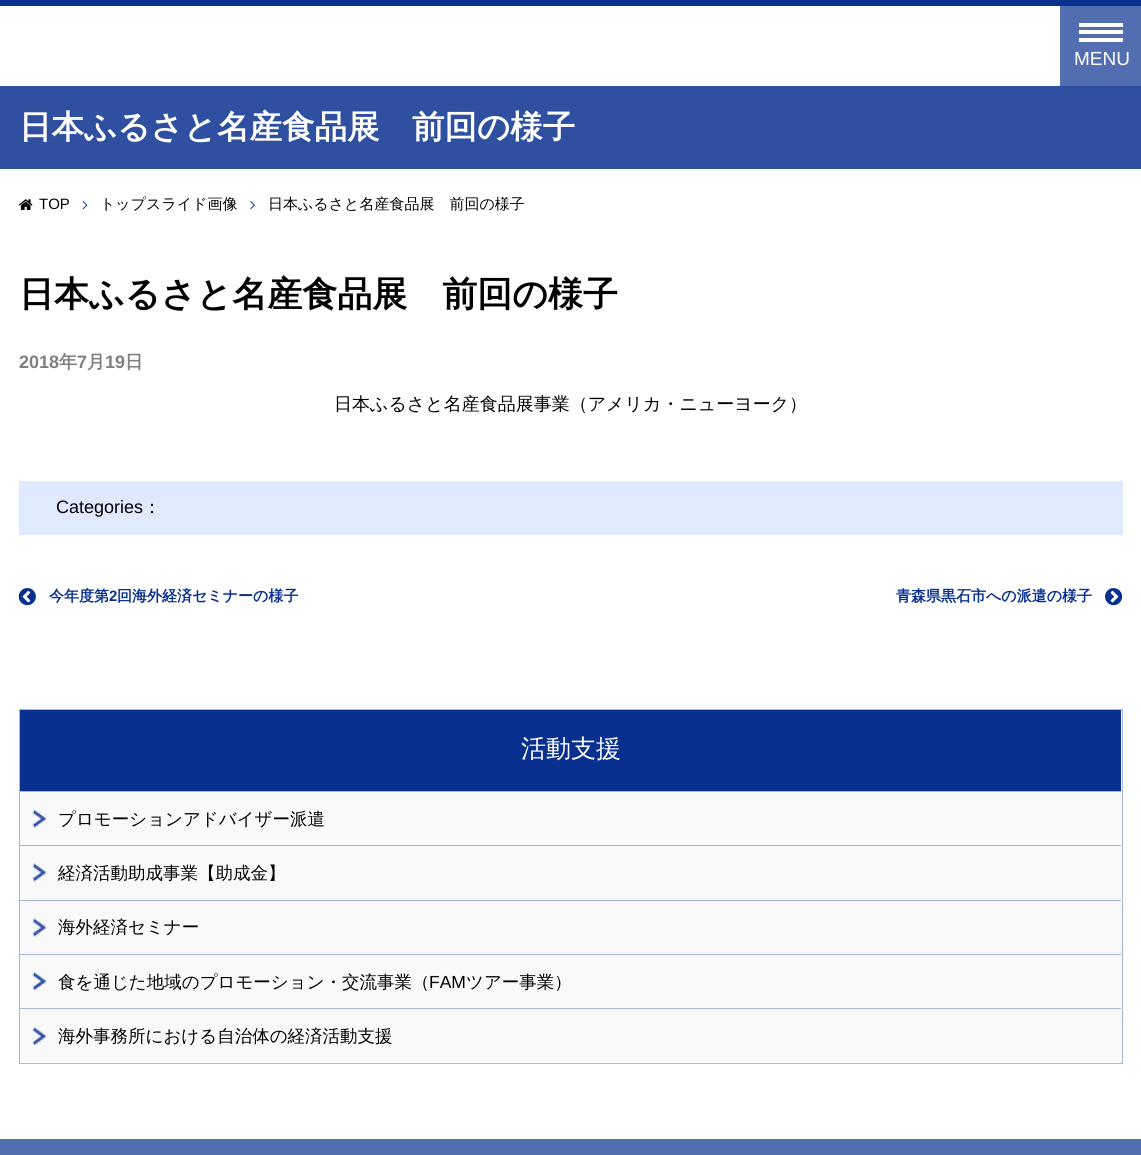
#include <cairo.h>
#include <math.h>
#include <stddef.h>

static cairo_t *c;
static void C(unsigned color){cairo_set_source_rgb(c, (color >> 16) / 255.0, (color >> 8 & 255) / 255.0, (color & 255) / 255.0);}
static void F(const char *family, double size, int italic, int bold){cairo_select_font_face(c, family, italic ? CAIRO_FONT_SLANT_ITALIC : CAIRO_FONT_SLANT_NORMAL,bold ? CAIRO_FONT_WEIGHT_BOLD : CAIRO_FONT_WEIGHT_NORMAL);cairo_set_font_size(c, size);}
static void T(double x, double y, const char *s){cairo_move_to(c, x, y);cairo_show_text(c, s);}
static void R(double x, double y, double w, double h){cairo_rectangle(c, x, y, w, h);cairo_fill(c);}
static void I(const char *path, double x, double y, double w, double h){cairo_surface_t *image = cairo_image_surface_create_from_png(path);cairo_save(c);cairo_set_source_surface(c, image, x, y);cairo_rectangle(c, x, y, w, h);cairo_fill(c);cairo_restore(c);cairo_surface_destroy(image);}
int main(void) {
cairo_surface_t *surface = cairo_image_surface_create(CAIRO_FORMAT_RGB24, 1141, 1155);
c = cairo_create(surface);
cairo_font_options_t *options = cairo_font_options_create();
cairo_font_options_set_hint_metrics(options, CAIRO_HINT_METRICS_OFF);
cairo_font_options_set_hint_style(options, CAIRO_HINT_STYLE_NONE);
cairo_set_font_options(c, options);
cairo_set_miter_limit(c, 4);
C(0xffffff);
cairo_paint(c);
C(0x0a308f);
R(0,0,1141,6);
C(0x536eb0);
R(1060,6,81,80);
C(0xffffff);
R(1079,23,44,4);
R(1079,30,44,4);
R(1079,38,44,4);
F("Liberation Sans",19,0,0);
T(1074,65,"MENU");
C(0x2f4fa0);
R(0,86,1141,83);
F("WenQuanYi Zen Hei",32.5,0,1);
C(0xffffff);
T(19,138,"日本ふるさと名産食品展　前回の様子");
I("1.png",19,199,14,11);
F("Liberation Sans",15,0,0);
C(0x000000);
T(39,209,"TOP");
I("2.png",82,201,6,9);
F("WenQuanYi Zen Hei Medium",15,0,0);
T(100,209,"トップスライド画像");
I("3.png",250,201,5,9);
T(268,209,"日本ふるさと名産食品展　前回の様子");
F("WenQuanYi Zen Hei",35,0,1);
T(19,306,"日本ふるさと名産食品展　前回の様子");
F("Liberation Sans",18,0,1);
C(0x808080);
T(19,368,"2018");
F("WenQuanYi Zen Hei",18,0,1);
T(59,368,"年");
F("Liberation Sans",18,0,1);
T(77,368,"7");
F("WenQuanYi Zen Hei",18,0,1);
T(87,368,"月");
F("Liberation Sans",18,0,1);
T(105,368,"19");
F("WenQuanYi Zen Hei",18,0,1);
T(125,368,"日");
F("WenQuanYi Zen Hei Medium",18,0,0);
C(0x000000);
T(334,410,"日本ふるさと名産食品展事業（アメリカ・ニューヨーク）");
C(0xdfe9ff);
R(19,481,1104,54);
F("Liberation Sans",18,0,0);
C(0x000000);
T(56,513,"Categories");
F("WenQuanYi Zen Hei Medium",18,0,0);
T(143,513,"：");
I("4.png",18,588,18,18);
F("WenQuanYi Zen Hei",15,0,1);
C(0x0a308f);
T(49,601,"今年度第");
F("Liberation Sans",15,0,1);
T(109,601,"2");
F("WenQuanYi Zen Hei",15,0,1);
T(117,601,"回海外経済セミナーの様子");
T(896,601,"青森県黒石市への派遣の様子");
I("5.png",1105,588,18,18);
C(0xf9f9f9);
cairo_rectangle(c,19.5,709.5,1103,354);
cairo_fill_preserve(c);
C(0xa8b6d7);
cairo_set_line_width(c,1);
cairo_stroke(c);
C(0x0a308f);
R(20,710,1101,81);
F("WenQuanYi Zen Hei Medium",25,0,0);
C(0xffffff);
T(521,757,"活動支援");
C(0xa8b6d7);
R(20,791,1101,1);
I("6.png",32,810,15,18);
F("WenQuanYi Zen Hei Medium",17.5,0,0);
C(0x000000);
T(58,825,"プロモーションアドバイザー派遣");
C(0xa8b6d7);
R(20,845,1101,1);
I("7.png",32,863,15,19);
C(0x000000);
T(58,879,"経済活動助成事業【助成金】");
C(0xa8b6d7);
R(20,900,1101,1);
I("7.png",32,918,15,19);
C(0x000000);
T(58,933,"海外経済セミナー");
C(0xa8b6d7);
R(20,954,1101,1);
I("8.png",32,972,15,18);
C(0x000000);
T(58,988,"食を通じた地域のプロモーション・交流事業（");
F("Liberation Sans",17.5,0,0);
T(429,988,"FAM");
F("WenQuanYi Zen Hei Medium",17.5,0,0);
T(466,988,"ツアー事業）");
C(0xa8b6d7);
R(20,1008,1101,1);
I("8.png",32,1027,15,18);
C(0x000000);
T(58,1042,"海外事務所における自治体の経済活動支援");
C(0x536eb0);
R(0,1139,1141,16);
cairo_surface_write_to_png(surface, "o.png");
cairo_font_options_destroy(options);
cairo_destroy(c);
cairo_surface_destroy(surface);
return 0;
}
